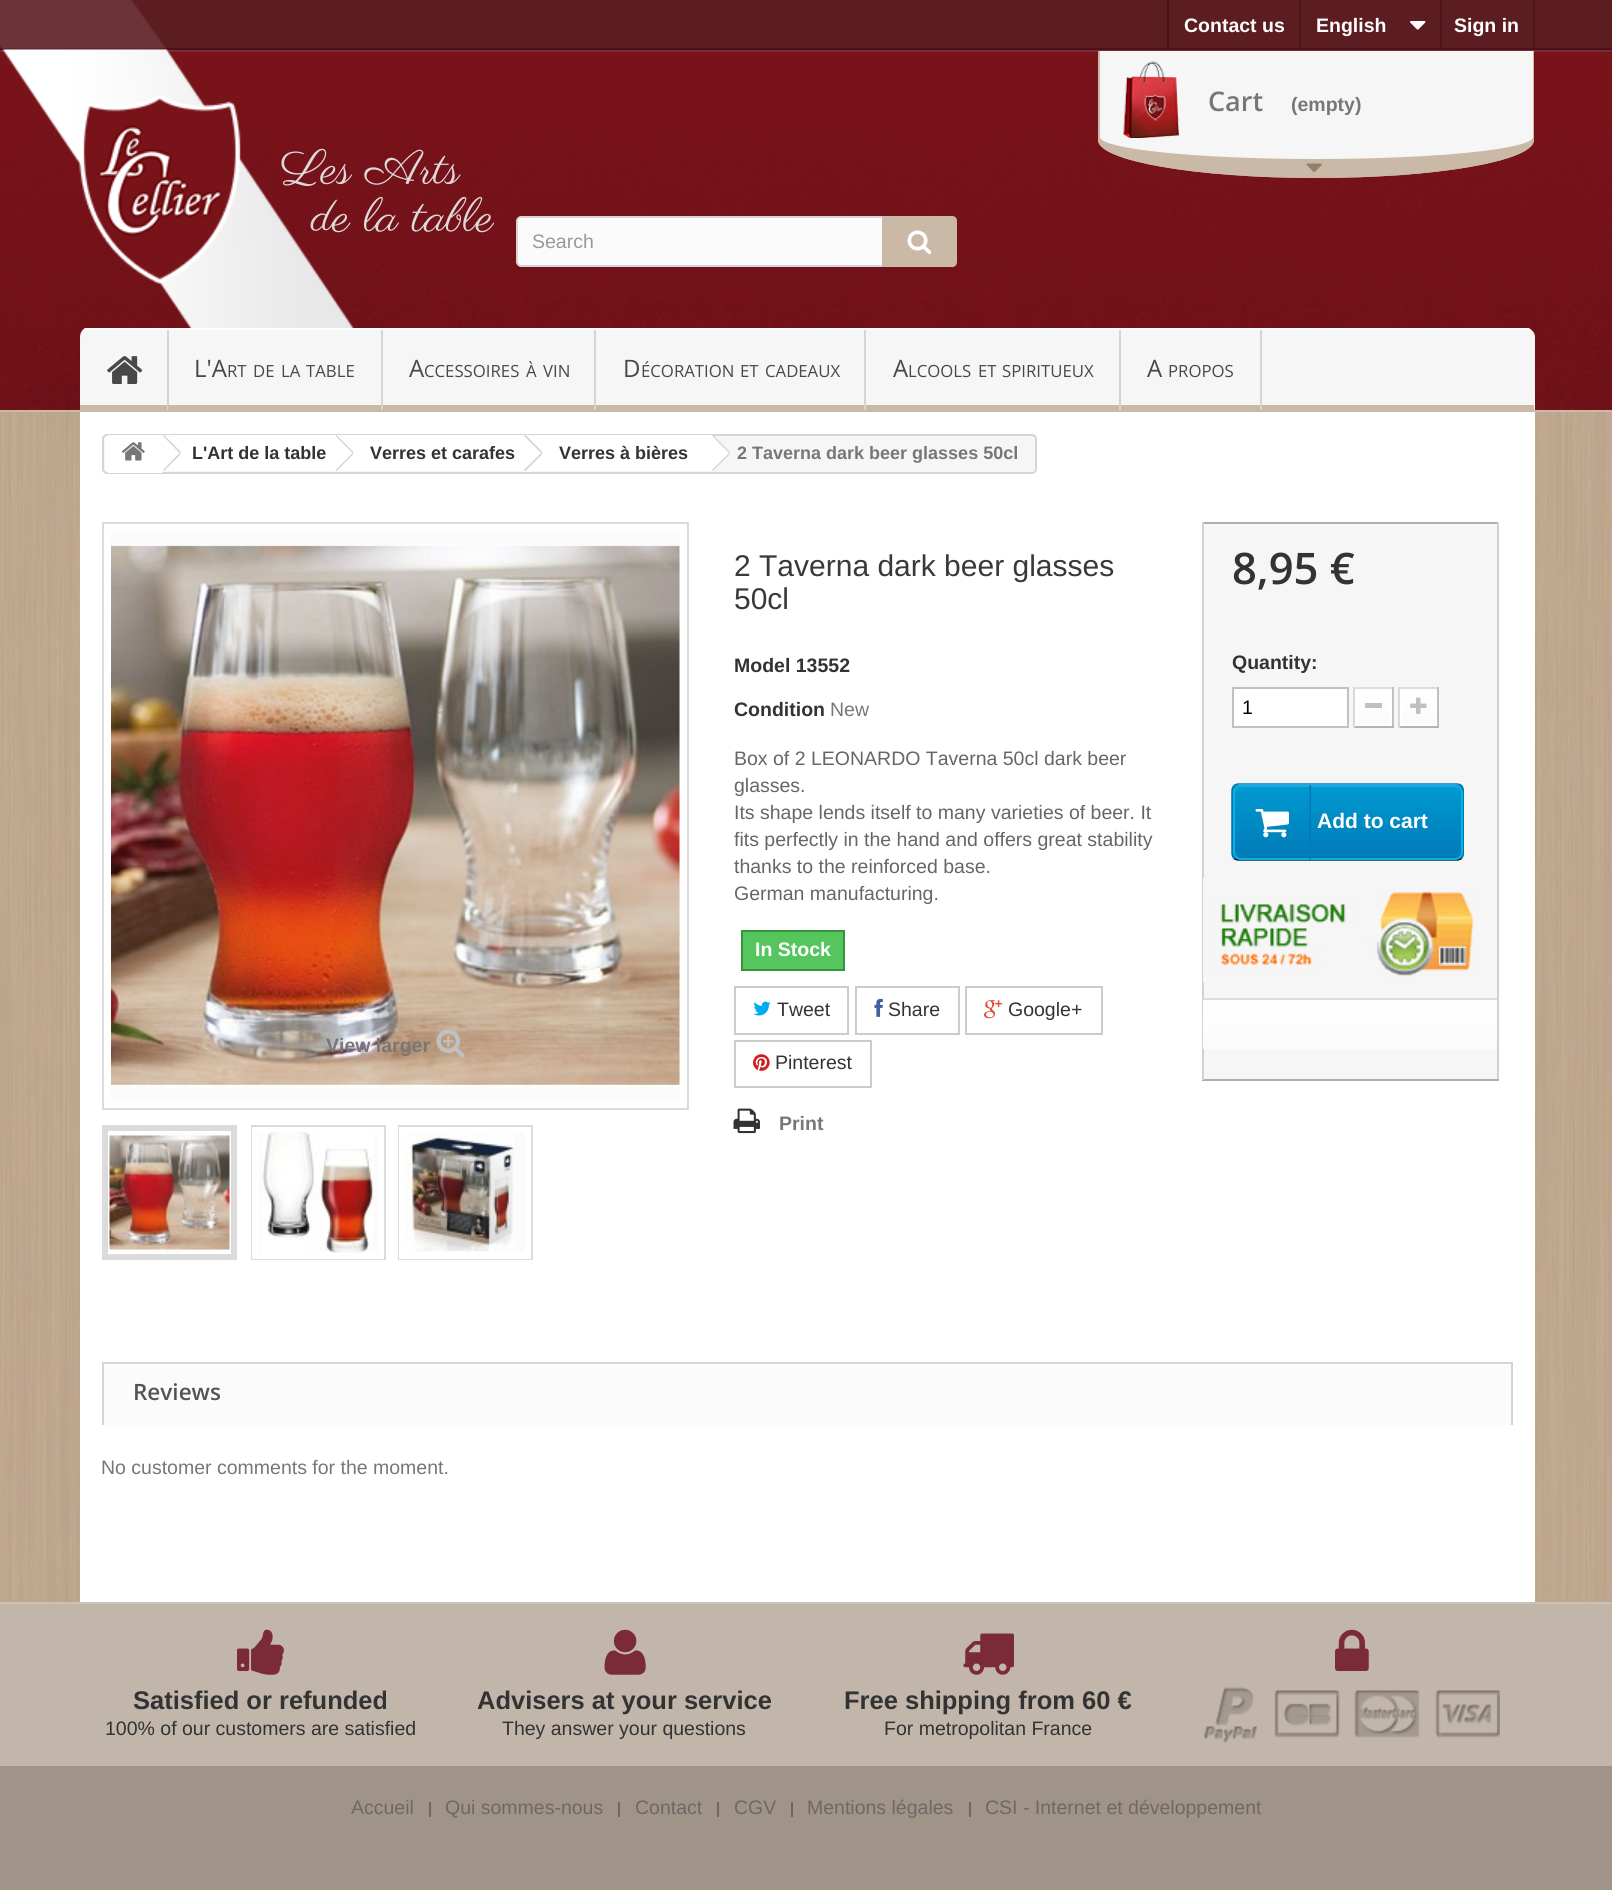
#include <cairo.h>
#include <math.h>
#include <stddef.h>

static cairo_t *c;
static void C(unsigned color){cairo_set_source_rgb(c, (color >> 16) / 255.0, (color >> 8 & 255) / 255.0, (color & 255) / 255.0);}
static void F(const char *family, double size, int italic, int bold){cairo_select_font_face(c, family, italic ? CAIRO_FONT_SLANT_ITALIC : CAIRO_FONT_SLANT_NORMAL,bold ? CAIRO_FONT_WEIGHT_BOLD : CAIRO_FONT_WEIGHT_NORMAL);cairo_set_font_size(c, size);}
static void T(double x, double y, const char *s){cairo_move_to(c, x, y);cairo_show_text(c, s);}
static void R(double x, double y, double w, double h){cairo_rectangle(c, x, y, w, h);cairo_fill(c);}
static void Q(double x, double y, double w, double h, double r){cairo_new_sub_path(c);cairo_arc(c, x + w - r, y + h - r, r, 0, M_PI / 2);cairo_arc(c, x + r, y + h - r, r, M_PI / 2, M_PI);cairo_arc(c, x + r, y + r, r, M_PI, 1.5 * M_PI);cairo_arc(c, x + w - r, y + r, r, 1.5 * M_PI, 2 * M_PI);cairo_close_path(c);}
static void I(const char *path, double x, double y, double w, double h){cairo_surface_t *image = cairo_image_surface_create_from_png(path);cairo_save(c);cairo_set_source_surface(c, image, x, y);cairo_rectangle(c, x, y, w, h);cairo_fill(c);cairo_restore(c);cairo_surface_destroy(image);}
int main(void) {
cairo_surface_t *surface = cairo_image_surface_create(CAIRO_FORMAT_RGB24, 1612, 1890);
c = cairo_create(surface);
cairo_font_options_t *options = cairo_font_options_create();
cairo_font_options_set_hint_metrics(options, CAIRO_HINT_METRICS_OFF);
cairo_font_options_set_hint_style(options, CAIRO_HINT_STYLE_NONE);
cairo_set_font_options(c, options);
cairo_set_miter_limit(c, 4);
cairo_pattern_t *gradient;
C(0xffffff);
cairo_paint(c);
I("1.png",0,412,1612,1190);
C(0x79131a);
R(0,52,1612,358);
I("2.png",0,123,1612,287);
C(0xcbb9a7);
R(0,410,1612,2);
C(0x5c1d21);
R(0,0,1612,48);
C(0x4d111b);
R(0,48,1612,2);
R(1167,0,2,48);
F("Liberation Sans",19.5,0,1);
C(0xffffff);
T(1184,32,"Contact us");
C(0x4d111b);
R(1299,0,2,48);
C(0xffffff);
T(1316,32,"English");
I("3.png",1410,21,16,9);
C(0x4d111b);
R(1533,0,2,48);
R(1440,0,2,48);
C(0xffffff);
T(1454,32,"Sign in");
C(0x7b2a37);
R(0,50,1612,2);
C(0xcbb9a7);
cairo_new_path(c);
cairo_move_to(c,1098,51);
cairo_line_to(c,1534,51);
cairo_line_to(c,1534,140);
cairo_curve_to(c,1534,161,1437,178,1316,178);
cairo_curve_to(c,1196,178,1098,161,1098,140);
cairo_close_path(c);
cairo_fill(c);
cairo_set_fill_rule(c,CAIRO_FILL_RULE_EVEN_ODD);
cairo_new_path(c);
cairo_move_to(c,1098,51);
cairo_line_to(c,1534,51);
cairo_line_to(c,1534,140);
cairo_curve_to(c,1534,161,1437,178,1316,178);
cairo_curve_to(c,1196,178,1098,161,1098,140);
cairo_close_path(c);
cairo_move_to(c,1100,51);
cairo_line_to(c,1533,51);
cairo_line_to(c,1533,140);
cairo_curve_to(c,1533,151,1436,159,1316,159);
cairo_curve_to(c,1197,159,1100,151,1100,140);
cairo_close_path(c);
cairo_fill(c);
C(0xf6f6f6);
cairo_set_fill_rule(c,CAIRO_FILL_RULE_WINDING);
cairo_new_path(c);
cairo_move_to(c,1100,51);
cairo_line_to(c,1533,51);
cairo_line_to(c,1533,137);
cairo_curve_to(c,1533,149,1436,159,1316,159);
cairo_curve_to(c,1197,159,1100,149,1100,137);
cairo_close_path(c);
cairo_fill(c);
I("4.png",1123,61,56,77);
F("Open Sans SemiBold",27,0,0);
C(0x777777);
T(1208,111,"Cart");
F("Liberation Sans",19.5,0,1);
T(1291,111,"(empty)");
I("5.png",1306,163,16,10);
I("6.png",0,0,355,328);
F("Parisienne",48,0,0);
C(0xdcdbda);
T(281,183,"Les Arts");
T(311,231,"de la table");
C(0xfbfbfb);
cairo_new_path(c);
cairo_move_to(c,521,217);
cairo_line_to(c,952,217);
cairo_line_to(c,952,266);
cairo_line_to(c,521,266);
cairo_curve_to(c,519,266,517,264,517,262);
cairo_line_to(c,517,221);
cairo_curve_to(c,517,219,519,217,521,217);
cairo_close_path(c);
cairo_fill_preserve(c);
C(0xd6d4d4);
cairo_stroke(c);
F("Liberation Sans",19.5,0,0);
C(0x999999);
T(532,248,"Search");
C(0xcbb9a7);
cairo_new_path(c);
cairo_move_to(c,882,216);
cairo_line_to(c,952,216);
cairo_curve_to(c,955,216,957,218,957,221);
cairo_line_to(c,957,262);
cairo_curve_to(c,957,265,955,267,952,267);
cairo_line_to(c,882,267);
cairo_close_path(c);
cairo_fill(c);
I("7.png",907,230,25,25);
C(0xf6f6f6);
cairo_new_path(c);
cairo_move_to(c,88,329);
cairo_line_to(c,1527,329);
cairo_curve_to(c,1531.5,329,1535,332.5,1535,337);
cairo_line_to(c,1535,410);
cairo_line_to(c,80,410);
cairo_line_to(c,80,337);
cairo_curve_to(c,80,332.5,83.5,329,88,329);
cairo_close_path(c);
cairo_fill(c);
C(0xffffff);
cairo_new_path(c);
cairo_move_to(c,87,330);
cairo_line_to(c,1527,330);
cairo_curve_to(c,1531,330,1534,333,1534,336);
cairo_curve_to(c,1534,333,1532,330,1529,328);
cairo_line_to(c,85,328);
cairo_curve_to(c,82,330,80,333,80,336);
cairo_curve_to(c,80,333,83,330,87,330);
cairo_close_path(c);
cairo_fill(c);
C(0xcbb9a7);
R(80,405,1454,5);
C(0xd6d4d4);
R(167,330,2,80);
I("8.png",107,356,36,28);
R(381,330,2,80);
C(0xcbb9a7);
R(168,405,1,5);
F("Open Sans",24,0,0);
C(0x484848);
T(194,377,"L'A");
F("Open Sans",16.75,0,0);
T(227,377,"RT");
T(253,377,"DE");
T(281,377,"LA");
T(306,377,"TABLE");
C(0xd6d4d4);
R(594,330,2,80);
F("Open Sans",24,0,0);
C(0x484848);
T(409,377,"A");
F("Open Sans",16.75,0,0);
T(424,377,"CCESSOIRES");
T(526,377,"À");
T(543,377,"VIN");
C(0xd6d4d4);
R(864,330,2,80);
F("Open Sans",24,0,0);
C(0x484848);
T(623,377,"D");
F("Open Sans",16.75,0,0);
T(641,377,"ÉCORATION");
T(740,377,"ET");
T(765,377,"CADEAUX");
C(0xd6d4d4);
R(1119,330,2,80);
F("Open Sans",24,0,0);
C(0x484848);
T(893,377,"A");
F("Open Sans",16.75,0,0);
T(908,377,"LCOOLS");
T(978,377,"ET");
T(1002,377,"SPIRITUEUX");
C(0xd6d4d4);
R(1260,330,2,80);
F("Open Sans",24,0,0);
C(0x484848);
T(1147,377,"A");
F("Open Sans",16.75,0,0);
T(1168,377,"PROPOS");
C(0xffffff);
R(80,412,1455,1190);
C(0xf6f6f6);
Q(103,435,933,38,4);
cairo_fill_preserve(c);
C(0xd6d4d4);
cairo_stroke(c);
C(0xffffff);
cairo_new_path(c);
cairo_move_to(c,110,435);
cairo_line_to(c,162,435);
cairo_line_to(c,162,473);
cairo_line_to(c,110,473);
cairo_curve_to(c,107,473,105,471,105,468);
cairo_line_to(c,105,440);
cairo_curve_to(c,105,437,107,435,110,435);
cairo_close_path(c);
cairo_fill(c);
I("9.png",121,442,24,19);
R(162,435,176,36);
C(0xd6d4d4);
cairo_new_path(c);
cairo_move_to(c,164,435);
cairo_line_to(c,181,452);
cairo_line_to(c,179.5,453);
cairo_line_to(c,163,436);
cairo_close_path(c);
cairo_move_to(c,179.5,453);
cairo_line_to(c,181,454);
cairo_line_to(c,164,471);
cairo_line_to(c,163,470);
cairo_close_path(c);
cairo_fill(c);
F("Liberation Sans",18,0,1);
C(0x333333);
T(192,459,"L'Art de la table");
C(0xffffff);
cairo_new_path(c);
cairo_move_to(c,352.5,436);
cairo_line_to(c,367.5,451);
cairo_curve_to(c,368.5,452,368.5,454,367.5,455);
cairo_line_to(c,352.5,470);
cairo_curve_to(c,351.5,471,349.5,471,348.5,470);
cairo_line_to(c,333.5,455);
cairo_curve_to(c,332.5,454,332.5,452,333.5,451);
cairo_line_to(c,348.5,436);
cairo_curve_to(c,349.5,435,351.5,435,352.5,436);
cairo_close_path(c);
cairo_fill(c);
R(338,435,187,36);
C(0xd6d4d4);
cairo_new_path(c);
cairo_move_to(c,336.5,435);
cairo_line_to(c,353.5,452);
cairo_line_to(c,352.5,453);
cairo_line_to(c,335.5,436);
cairo_close_path(c);
cairo_move_to(c,352.5,453);
cairo_line_to(c,353.5,454);
cairo_line_to(c,336.5,471);
cairo_line_to(c,335.5,470);
cairo_close_path(c);
cairo_fill(c);
C(0x333333);
T(370,459,"Verres et carafes");
C(0xffffff);
cairo_new_path(c);
cairo_move_to(c,541.5,436);
cairo_line_to(c,556,451);
cairo_curve_to(c,557.5,452,557.5,454,556,455);
cairo_line_to(c,541.5,470);
cairo_curve_to(c,540,471,538.5,471,537,470);
cairo_line_to(c,522.5,455);
cairo_curve_to(c,521,454,521,452,522.5,451);
cairo_line_to(c,537,436);
cairo_curve_to(c,538.5,435,540,435,541.5,436);
cairo_close_path(c);
cairo_fill(c);
R(525,435,186,36);
C(0xd6d4d4);
cairo_new_path(c);
cairo_move_to(c,525.5,435);
cairo_line_to(c,542.5,452);
cairo_line_to(c,541,453);
cairo_line_to(c,524,436);
cairo_close_path(c);
cairo_move_to(c,541,453);
cairo_line_to(c,542.5,454);
cairo_line_to(c,525.5,471);
cairo_line_to(c,524,470);
cairo_close_path(c);
cairo_fill(c);
C(0x333333);
T(559,459,"Verres à bières");
C(0xffffff);
cairo_new_path(c);
cairo_move_to(c,714,436);
cairo_line_to(c,729,451);
cairo_curve_to(c,730,452,730,454,729,455);
cairo_line_to(c,714,470);
cairo_curve_to(c,713,471,711,471,709.5,470);
cairo_line_to(c,695,455);
cairo_curve_to(c,693.5,454,693.5,452,695,451);
cairo_line_to(c,709.5,436);
cairo_curve_to(c,711,435,713,435,714,436);
cairo_close_path(c);
cairo_fill(c);
C(0xd6d4d4);
cairo_new_path(c);
cairo_move_to(c,713,435);
cairo_line_to(c,730,452);
cairo_line_to(c,729,453);
cairo_line_to(c,712,436);
cairo_close_path(c);
cairo_move_to(c,729,453);
cairo_line_to(c,730,454);
cairo_line_to(c,713,471);
cairo_line_to(c,712,470);
cairo_close_path(c);
cairo_fill(c);
C(0x777777);
T(737,459,"2 Taverna dark beer glasses 50cl");
cairo_rectangle(c,103,523,585,586);
C(0xdbdbdb);
cairo_stroke(c);
C(0xfbfbfb);
R(111,531,569,570);
I("10.png",111,545,569,542);
F("Liberation Sans",19.5,0,1);
C(0x777777);
T(326,1052,"View larger");
I("11.png",436,1029,29,29);
cairo_rectangle(c,103,1126,133,133);
C(0xdbdbdb);
cairo_stroke(c);
cairo_rectangle(c,106.5,1129.5,127,127);
cairo_set_line_width(c,5);
cairo_stroke(c);
cairo_rectangle(c,109,1132,121,121);
C(0xffffff);
cairo_set_line_width(c,2);
cairo_stroke(c);
I("12.png",109,1132,121,121);
cairo_rectangle(c,252,1126,133,133);
C(0xdbdbdb);
cairo_stroke(c);
C(0xfbfbfb);
R(259,1133,119,119);
cairo_rectangle(c,254.5,1129.5,127,127);
C(0xffffff);
cairo_set_line_width(c,5);
cairo_stroke(c);
I("13.png",262,1132,112,121);
cairo_rectangle(c,399,1126,133,133);
C(0xdbdbdb);
cairo_set_line_width(c,2);
cairo_stroke(c);
C(0xfbfbfb);
R(514,1133,11,119);
cairo_rectangle(c,401.5,1129.5,127,127);
C(0xffffff);
cairo_set_line_width(c,5);
cairo_stroke(c);
I("14.png",405,1132,109,120);
F("Liberation Sans",30,0,0);
C(0x3a3939);
T(734,576,"2 Taverna dark beer glasses");
T(734,609,"50cl");
F("Liberation Sans",19.5,0,1);
C(0x333333);
T(734,672,"Model 13552");
T(734,716,"Condition");
F("Liberation Sans",19.5,0,0);
C(0x777777);
T(830,716,"New");
C(0x666666);
T(734,765,"Box of 2 LEONARDO Taverna 50cl dark beer");
T(734,792,"glasses.");
T(734,819,"Its shape lends itself to many varieties of beer. It");
T(734,846,"fits perfectly in the hand and offers great stability");
T(734,873,"thanks to the reinforced base.");
T(734,900,"German manufacturing.");
C(0x55c65e);
cairo_rectangle(c,742,931,102,39);
cairo_fill_preserve(c);
C(0x36943e);
cairo_set_line_width(c,2);
cairo_stroke(c);
F("Liberation Sans",19.5,0,1);
C(0xffffff);
T(755,956,"In Stock");
cairo_rectangle(c,735,987,113,47);
C(0xcccccc);
cairo_stroke(c);
I("15.png",753,1001,18,15);
F("Liberation Sans",19.5,0,0);
C(0x333333);
T(777,1016,"Tweet");
cairo_rectangle(c,856,987,103,47);
C(0xcccccc);
cairo_stroke(c);
I("16.png",874,998,9,19);
C(0x333333);
T(888,1016,"Share");
cairo_rectangle(c,966,987,136,47);
C(0xcccccc);
cairo_stroke(c);
I("17.png",984,1000,19,19);
C(0x333333);
T(1008,1016,"Google+");
cairo_rectangle(c,735,1041,136,46);
C(0xcccccc);
cairo_stroke(c);
I("18.png",753,1054,17,17);
C(0x333333);
T(775,1069,"Pinterest");
I("19.png",733,1108,27,26);
F("Liberation Sans",19.5,0,1);
C(0x777777);
T(779,1130,"Print");
C(0xf6f6f6);
R(1204,524,293,555);
C(0xb0afaf);
R(1202,522,297,2);
C(0xd2d0d0);
R(1497,522,2,558);
C(0xb0afaf);
R(1202,1079,297,2);
C(0xd2d0d0);
R(1202,522,2,558);
F("Open Sans SemiBold",43.5,0,0);
C(0x333333);
T(1232,584,"8,95 €");
F("Liberation Sans",19.5,0,1);
T(1232,669,"Quantity:");
C(0xffffff);
cairo_rectangle(c,1233,688,115,39);
cairo_fill_preserve(c);
C(0xbdc2c9);
cairo_stroke(c);
F("Liberation Sans",19.5,0,0);
C(0x000000);
T(1242,714,"1");
C(0xdedcdc);
R(1353,687,41,2);
C(0xc1bfbf);
R(1392,687,2,41);
C(0xb5b4b4);
R(1353,726,41,2);
C(0xdad8d8);
R(1353,687,2,41);
gradient = cairo_pattern_create_linear(1373,690,1373,725);
cairo_pattern_add_color_stop_rgba(gradient,0,1,1,1,1);
cairo_pattern_add_color_stop_rgba(gradient,1,0.984,0.984,0.984,1);
cairo_set_source(c,gradient);
cairo_pattern_destroy(gradient);
R(1357,691,33,33);
cairo_rectangle(c,1356,690,35,35);
C(0xffffff);
cairo_stroke(c);
C(0xc0c0c0);
R(1365,703,17,5);
C(0xdedcdc);
R(1398,687,41,2);
C(0xc1bfbf);
R(1437,687,2,41);
C(0xb5b4b4);
R(1398,726,41,2);
C(0xdad8d8);
R(1398,687,2,41);
gradient = cairo_pattern_create_linear(1418,690,1418,725);
cairo_pattern_add_color_stop_rgba(gradient,0,1,1,1,1);
cairo_pattern_add_color_stop_rgba(gradient,1,0.984,0.984,0.984,1);
cairo_set_source(c,gradient);
cairo_pattern_destroy(gradient);
R(1402,691,33,33);
cairo_rectangle(c,1401,690,35,35);
C(0xffffff);
cairo_stroke(c);
I("20.png",1410,697,17,17);
cairo_save(c);
Q(1232,783,232,78,8);
cairo_clip(c);
gradient = cairo_pattern_create_linear(1348,785,1348,860);
cairo_pattern_add_color_stop_rgba(gradient,0,0,0.604,0.816,1);
cairo_pattern_add_color_stop_rgba(gradient,1,0,0.478,0.718,1);
cairo_set_source(c,gradient);
cairo_pattern_destroy(gradient);
R(1232,785,232,75);
cairo_restore(c);
cairo_new_path(c);
cairo_move_to(c,1234,785.5);
cairo_curve_to(c,1235.5,784.5,1237,784,1239,784);
cairo_line_to(c,1456.5,784);
cairo_curve_to(c,1458.5,784,1460,784.5,1461.5,785.5);
C(0x0079b6);
cairo_set_line_width(c,1.5);
cairo_stroke(c);
cairo_new_path(c);
cairo_move_to(c,1461.5,785.5);
cairo_curve_to(c,1462.5,787,1463,788.5,1463,790.5);
cairo_line_to(c,1463,853.5);
cairo_curve_to(c,1463,855.5,1462.5,857,1461.5,858.5);
C(0x006fa8);
cairo_stroke(c);
cairo_new_path(c);
cairo_move_to(c,1461.5,858.5);
cairo_curve_to(c,1460,859.5,1458.5,860,1456.5,860);
cairo_line_to(c,1239,860);
cairo_curve_to(c,1237,860,1235.5,859.5,1234,858.5);
C(0x012740);
cairo_stroke(c);
cairo_new_path(c);
cairo_move_to(c,1234,858.5);
cairo_curve_to(c,1233,857,1232,855.5,1232,853.5);
cairo_line_to(c,1232,790.5);
cairo_curve_to(c,1232,788.5,1233,787,1234,785.5);
C(0x006fa8);
cairo_stroke(c);
Q(1234,786,228,73,7);
C(0x06b2e6);
cairo_set_line_width(c,2);
cairo_stroke(c);
I("21.png",1255,809,34,29);
I("22.png",1309,785,2,75);
F("Liberation Sans",21,0,1);
C(0xffffff);
T(1317,828,"Add to cart");
I("23.png",1203,877,272,106);
gradient = cairo_pattern_create_linear(1350,999,1350,1049);
cairo_pattern_add_color_stop_rgba(gradient,0,1,1,1,1);
cairo_pattern_add_color_stop_rgba(gradient,1,0.984,0.984,0.984,1);
cairo_set_source(c,gradient);
cairo_pattern_destroy(gradient);
R(1203,1000,294,49);
C(0xdfdede);
R(1203,998,294,2);
C(0xfbfbfb);
R(104,1364,1407,61);
C(0xd6d4d4);
R(102,1362,1410,2);
R(1511,1362,2,63);
R(102,1362,2,63);
F("Open Sans SemiBold",22.5,0,0);
C(0x555454);
T(133,1400,"Reviews");
F("Liberation Sans",19.5,0,0);
C(0x777777);
T(101,1474,"No customer comments for the moment.");
C(0xa09489);
R(0,1766,1612,124);
C(0xcbc1b8);
R(0,1602,1612,2);
C(0xc2b6ab);
R(0,1604,1612,162);
I("24.png",237,1629,47,46);
F("Liberation Sans",25.5,0,1);
C(0x333333);
T(133,1709,"Satisfied or refunded");
F("Liberation Sans",19.5,0,0);
T(105,1735,"100% of our customers are satisfied");
I("25.png",604,1629,42,46);
F("Liberation Sans",25.5,0,1);
T(477,1709,"Advisers at your service");
F("Liberation Sans",19.5,0,0);
T(502,1735,"They answer your questions");
I("26.png",963,1633,51,42);
F("Liberation Sans",25.5,0,1);
T(844,1709,"Free shipping from 60 €");
F("Liberation Sans",19.5,0,0);
T(884,1735,"For metropolitan France");
I("27.png",1335,1629,34,42);
I("28.png",1204,1687,296,56);
C(0x6d6864);
T(351,1814,"Accueil");
R(429,1802,2,15);
T(445,1814,"Qui sommes-nous");
R(618,1802,2,15);
T(635,1814,"Contact");
R(717,1802,2,15);
T(734,1814,"CGV");
R(791,1802,2,15);
T(807,1814,"Mentions légales");
R(969,1802,2,15);
T(985,1814,"CSI - Internet et développement");
cairo_surface_write_to_png(surface, "o.png");
cairo_font_options_destroy(options);
cairo_destroy(c);
cairo_surface_destroy(surface);
return 0;
}
